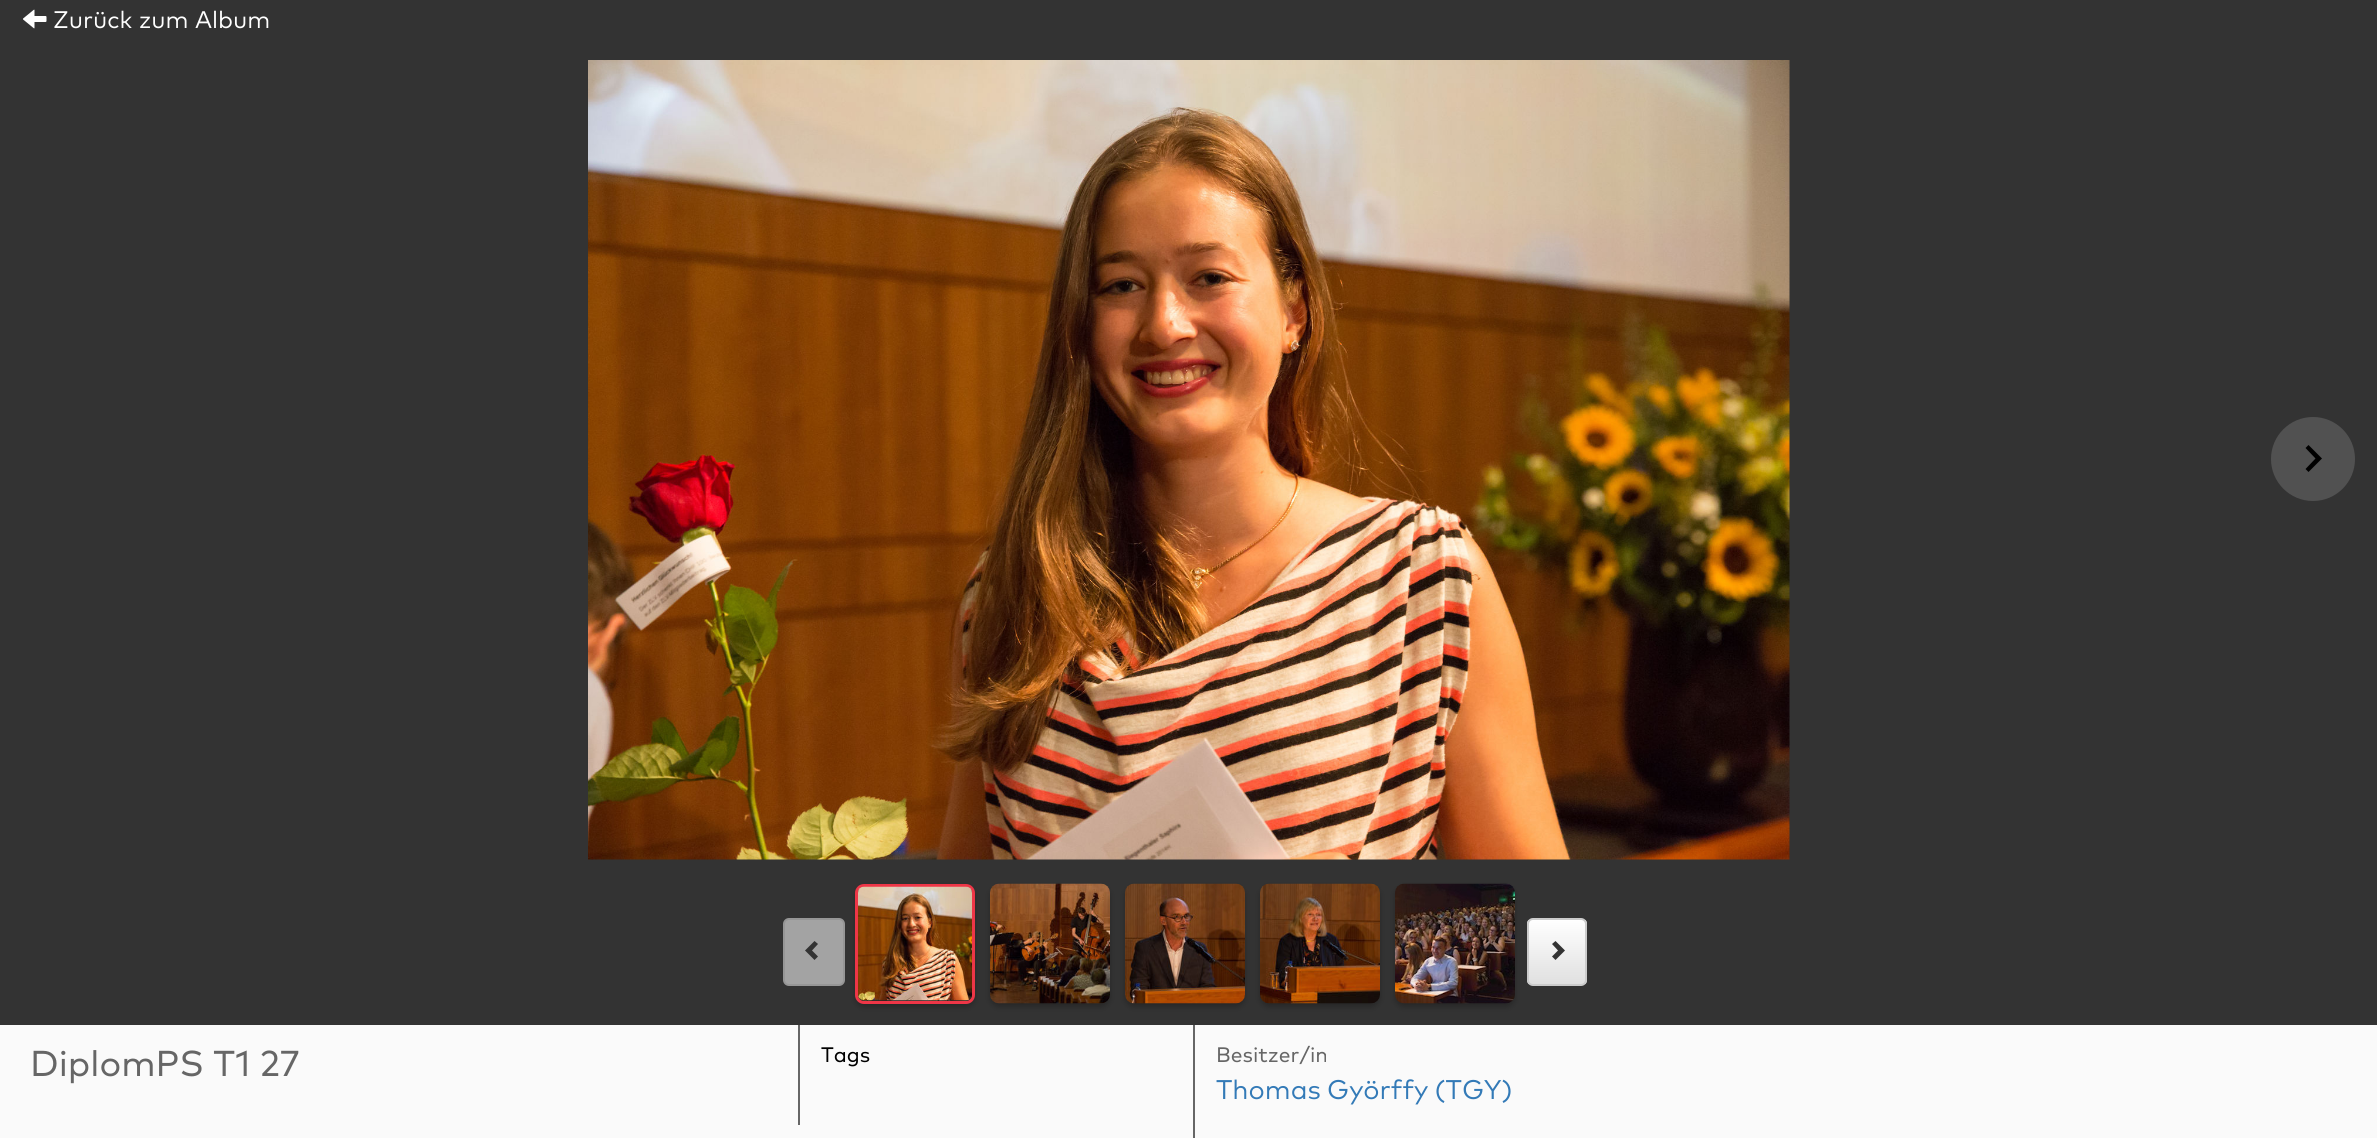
#include <cairo.h>
#include <math.h>
#include <stddef.h>

static cairo_t *c;
static void C(unsigned color){cairo_set_source_rgb(c, (color >> 16) / 255.0, (color >> 8 & 255) / 255.0, (color & 255) / 255.0);}
static void F(const char *family, double size, int italic, int bold){cairo_select_font_face(c, family, italic ? CAIRO_FONT_SLANT_ITALIC : CAIRO_FONT_SLANT_NORMAL,bold ? CAIRO_FONT_WEIGHT_BOLD : CAIRO_FONT_WEIGHT_NORMAL);cairo_set_font_size(c, size);}
static void T(double x, double y, const char *s){cairo_move_to(c, x, y);cairo_show_text(c, s);}
static void L(double x, double y, const char *s, double letter, double word){cairo_move_to(c, x, y);while (*s) {char ch[5] = {0};int n = 0;do ch[n++] = *s++; while ((*s & 0xC0) == 0x80);cairo_show_text(c, ch);cairo_rel_move_to(c, letter + word * (*ch == ' '), 0);}}
static void R(double x, double y, double w, double h){cairo_rectangle(c, x, y, w, h);cairo_fill(c);}
static void Q(double x, double y, double w, double h, double r){cairo_new_sub_path(c);cairo_arc(c, x + w - r, y + h - r, r, 0, M_PI / 2);cairo_arc(c, x + r, y + h - r, r, M_PI / 2, M_PI);cairo_arc(c, x + r, y + r, r, M_PI, 1.5 * M_PI);cairo_arc(c, x + w - r, y + r, r, 1.5 * M_PI, 2 * M_PI);cairo_close_path(c);}
static void S(double x, double y, double w, double h, double r, double blur, double alpha){cairo_push_group_with_content(c, CAIRO_CONTENT_ALPHA);cairo_set_operator(c, CAIRO_OPERATOR_SOURCE);for (int i = 15; i >= -15 && fmin(w, h) + blur * i / 3 > 0; i -= 2) {double e = blur * i / 6;cairo_set_source_rgba(c, 0, 0, 0, alpha * erfc((i - 1) / 8.5) / 2);Q(x - e, y - e, w + 2 * e, h + 2 * e, fmax(0, fmin(r + e + blur * .6, fmin(w, h) / 2 + e)));cairo_fill(c);}cairo_pattern_t *soft = cairo_pop_group(c);cairo_mask(c, soft);cairo_pattern_destroy(soft);}
static void I(const char *path, double x, double y, double w, double h){cairo_surface_t *image = cairo_image_surface_create_from_png(path);cairo_save(c);cairo_set_source_surface(c, image, x, y);cairo_rectangle(c, x, y, w, h);cairo_fill(c);cairo_restore(c);cairo_surface_destroy(image);}
int main(void) {
cairo_surface_t *surface = cairo_image_surface_create(CAIRO_FORMAT_RGB24, 2377, 1138);
c = cairo_create(surface);
cairo_font_options_t *options = cairo_font_options_create();
cairo_font_options_set_hint_metrics(options, CAIRO_HINT_METRICS_OFF);
cairo_font_options_set_hint_style(options, CAIRO_HINT_STYLE_NONE);
cairo_set_font_options(c, options);
cairo_set_miter_limit(c, 4);
cairo_pattern_t *gradient;
C(0xfafafa);
cairo_paint(c);
C(0x333333);
R(0,0,2377,1025);
I("1.png",23,9,24,20);
F("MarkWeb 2",24,0,0);
C(0xffffff);
T(53,28,"Zurück zum Album");
I("2.png",588,60,1202,800);
C(0x515151);
cairo_arc(c,2313,459,42,0,2 * M_PI);
cairo_fill(c);
C(0x000000);
cairo_new_path(c);
cairo_move_to(c,2305.5,469);
cairo_line_to(c,2315.5,458.5);
cairo_line_to(c,2305.5,448);
cairo_line_to(c,2308.5,445);
cairo_line_to(c,2322,458.5);
cairo_line_to(c,2308.5,472);
cairo_close_path(c);
cairo_fill(c);
C(0xa3a3a3);
Q(784,919,60,66,5);
cairo_fill_preserve(c);
C(0x969696);
cairo_stroke(c);
C(0x333333);
cairo_new_path(c);
cairo_move_to(c,818,944);
cairo_line_to(c,812,950.5);
cairo_line_to(c,818,956.5);
cairo_line_to(c,814.5,960);
cairo_line_to(c,805,950.5);
cairo_line_to(c,814.5,941);
cairo_close_path(c);
cairo_fill(c);
C(0x000000);
S(855,887,120,120,9,3,.24);
Q(856.5,885.5,117,117,7.5);
C(0xee3647);
cairo_set_line_width(c,3);
cairo_stroke(c);
I("3.png",858,886,114,115);
C(0x000000);
S(990,887,120,120,9,3,.24);
I("4.png",990,883,120,121);
S(1125,887,120,120,9,3,.24);
I("5.png",1125,883,120,121);
S(1260,887,120,120,9,3,.24);
I("6.png",1260,883,120,121);
S(1395,887,120,120,9,3,.24);
I("7.png",1395,883,120,121);
cairo_save(c);
Q(1527,918,60,68,6);
cairo_clip(c);
gradient = cairo_pattern_create_linear(1557,920,1557,984);
cairo_pattern_add_color_stop_rgba(gradient,0,1,1,1,1);
cairo_pattern_add_color_stop_rgba(gradient,1,0.878,0.878,0.878,1);
cairo_set_source(c,gradient);
cairo_pattern_destroy(gradient);
R(1527,920,60,64);
cairo_restore(c);
Q(1528,919,58,66,5);
C(0xcccccc);
cairo_set_line_width(c,2);
cairo_stroke(c);
C(0x333333);
cairo_new_path(c);
cairo_move_to(c,1565,950.5);
cairo_line_to(c,1555.5,960);
cairo_line_to(c,1552,956.5);
cairo_line_to(c,1558,950.5);
cairo_line_to(c,1552,944);
cairo_line_to(c,1555.5,941);
cairo_close_path(c);
cairo_fill(c);
F("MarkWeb",36,0,0);
C(0x666666);
T(30,1076,"DiplomPS T1 27");
R(798,1025,2,100);
F("MarkWeb",21,0,0);
C(0x000000);
T(821,1062,"Tags");
C(0x666666);
R(1193,1025,2,113);
T(1216,1062,"Besitzer/in");
F("MarkWeb 2",27,0,0);
C(0x337ab7);
L(1216,1099,"Thomas Györffy (TGY)",0,-1);
cairo_surface_write_to_png(surface, "o.png");
cairo_font_options_destroy(options);
cairo_destroy(c);
cairo_surface_destroy(surface);
return 0;
}
